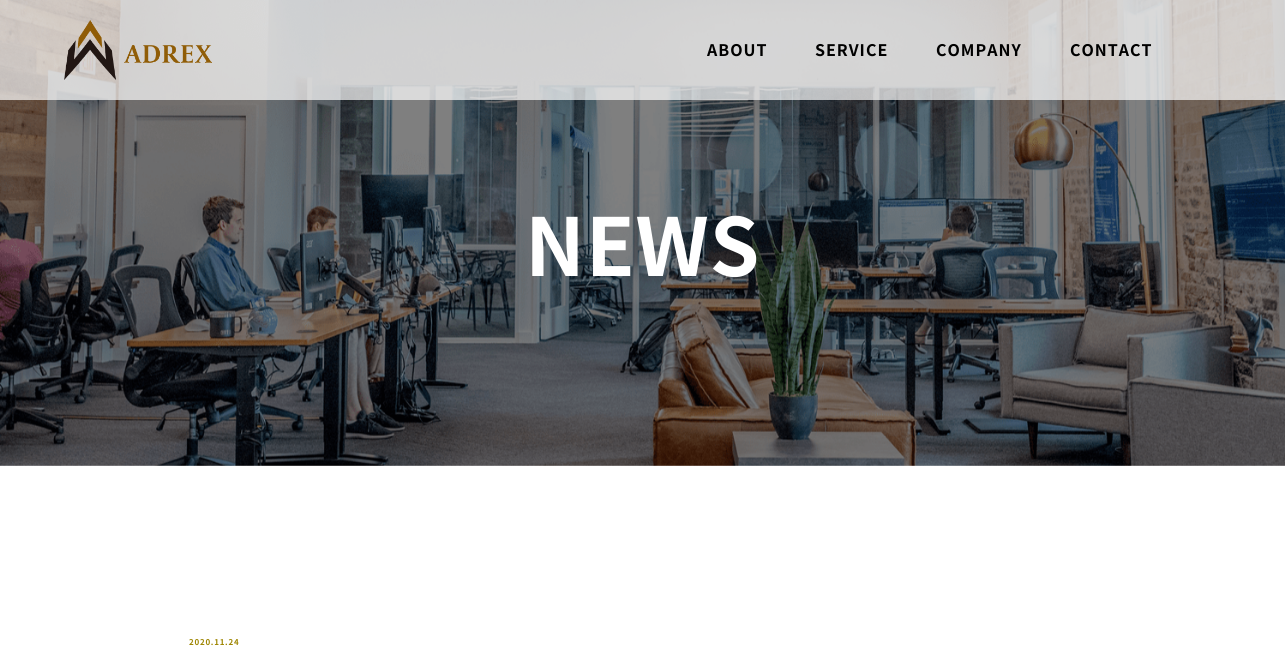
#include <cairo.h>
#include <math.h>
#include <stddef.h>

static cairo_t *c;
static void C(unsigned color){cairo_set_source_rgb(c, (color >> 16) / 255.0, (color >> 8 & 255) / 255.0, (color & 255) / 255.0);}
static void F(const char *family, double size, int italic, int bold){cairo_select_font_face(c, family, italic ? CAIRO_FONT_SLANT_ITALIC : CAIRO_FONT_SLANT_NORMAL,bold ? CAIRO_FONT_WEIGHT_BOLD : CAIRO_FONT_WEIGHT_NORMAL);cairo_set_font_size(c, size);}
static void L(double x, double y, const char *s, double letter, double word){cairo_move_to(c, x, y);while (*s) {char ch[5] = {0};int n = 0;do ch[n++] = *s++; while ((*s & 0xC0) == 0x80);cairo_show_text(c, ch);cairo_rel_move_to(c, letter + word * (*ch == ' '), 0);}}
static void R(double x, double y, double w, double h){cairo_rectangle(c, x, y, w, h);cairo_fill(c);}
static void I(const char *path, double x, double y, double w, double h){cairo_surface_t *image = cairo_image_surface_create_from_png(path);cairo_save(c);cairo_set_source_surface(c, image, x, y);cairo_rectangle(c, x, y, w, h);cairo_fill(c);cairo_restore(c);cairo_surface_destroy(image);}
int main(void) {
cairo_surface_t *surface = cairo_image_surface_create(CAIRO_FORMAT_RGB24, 1285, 665);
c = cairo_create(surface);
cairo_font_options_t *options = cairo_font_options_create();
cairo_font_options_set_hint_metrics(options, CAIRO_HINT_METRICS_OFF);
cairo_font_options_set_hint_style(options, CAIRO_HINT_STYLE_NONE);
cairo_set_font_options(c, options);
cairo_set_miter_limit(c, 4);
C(0xffffff);
cairo_paint(c);
I("2.png",0,0,1285,466);
cairo_set_source_rgba(c,1,1,1,0.7);
R(0,0,1285,100);
I("1.png",64,20,148,60);
F("Noto Sans JP",16,0,1);
C(0x000000);
L(707,56,"ABOUT",1,0);
L(815,56,"SERVICE",1,0);
L(936,56,"COMPANY",1,0);
L(1070,56,"CONTACT",1,0);
F("Noto Sans JP",80,0,1);
C(0xffffff);
L(525,276,"NEWS",.75,0);
F("Noto Sans JP",8,0,1);
C(0x9e8602);
L(189,645,"2020.11.24",.75,0);
cairo_surface_write_to_png(surface, "o.png");
cairo_font_options_destroy(options);
cairo_destroy(c);
cairo_surface_destroy(surface);
return 0;
}
